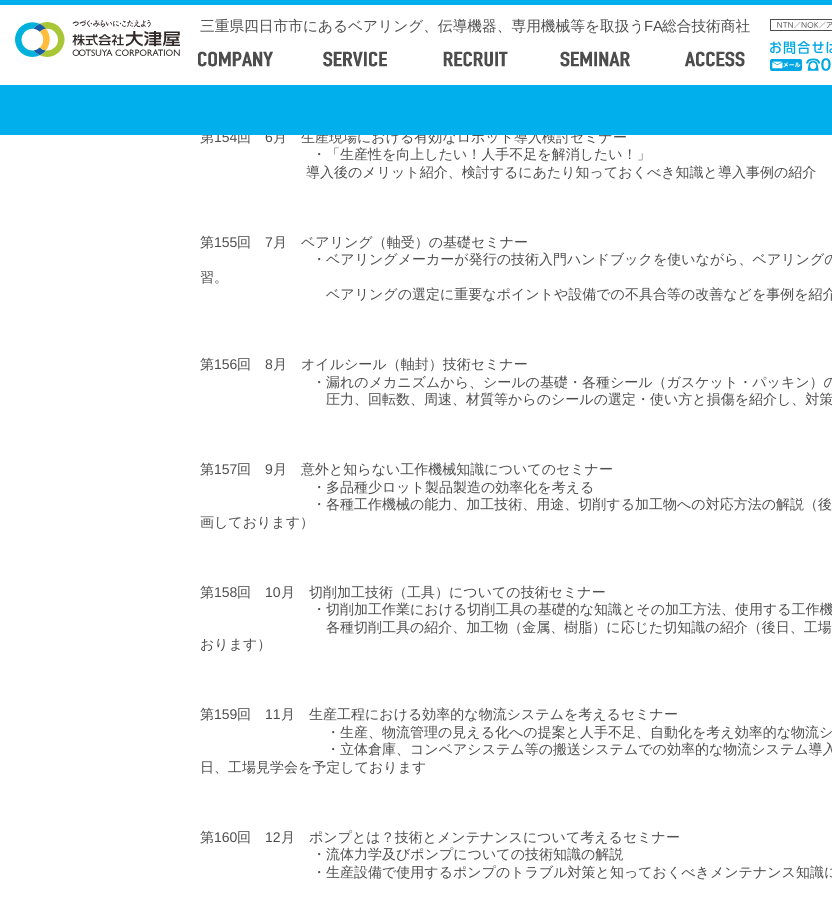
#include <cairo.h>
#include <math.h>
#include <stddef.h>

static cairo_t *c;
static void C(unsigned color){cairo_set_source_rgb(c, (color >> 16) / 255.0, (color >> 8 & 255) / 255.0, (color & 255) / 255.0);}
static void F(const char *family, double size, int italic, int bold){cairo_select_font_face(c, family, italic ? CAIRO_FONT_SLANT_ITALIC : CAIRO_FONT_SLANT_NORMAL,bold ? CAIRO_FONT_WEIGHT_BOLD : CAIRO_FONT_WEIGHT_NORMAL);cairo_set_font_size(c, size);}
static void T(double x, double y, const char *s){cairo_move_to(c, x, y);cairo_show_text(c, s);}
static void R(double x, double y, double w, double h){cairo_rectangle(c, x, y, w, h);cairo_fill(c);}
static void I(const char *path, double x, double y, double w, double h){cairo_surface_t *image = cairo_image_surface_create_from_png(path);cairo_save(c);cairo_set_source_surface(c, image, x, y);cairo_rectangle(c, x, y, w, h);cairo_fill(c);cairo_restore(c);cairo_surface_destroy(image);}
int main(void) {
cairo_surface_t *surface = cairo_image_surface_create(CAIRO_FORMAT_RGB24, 832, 909);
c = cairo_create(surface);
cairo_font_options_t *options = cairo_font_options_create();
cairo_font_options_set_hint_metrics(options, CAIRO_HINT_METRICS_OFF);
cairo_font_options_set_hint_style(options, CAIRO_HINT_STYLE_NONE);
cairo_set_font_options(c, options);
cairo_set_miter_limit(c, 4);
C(0xffffff);
cairo_paint(c);
C(0x00afec);
R(0,0,832,5);
C(0x4d4d4d);
R(198,51,547,16);
I("6.png",175,35,120,50);
I("1.png",15,20,165,37);
F("WenQuanYi Zen Hei Medium",14.7,0,0);
T(200,31,"三重県四日市市にあるベアリング、伝導機器、専用機械等を取扱う");
F("Liberation Sans",14.7,0,0);
T(644,31,"FA");
F("WenQuanYi Zen Hei Medium",14.7,0,0);
T(662,31,"総合技術商社");
cairo_rectangle(c,770.5,19.5,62,11);
cairo_set_line_width(c,1);
cairo_stroke(c);
I("2.png",777,22,55,6);
I("10.png",655,35,120,50);
I("3.png",770,41,62,13);
I("4.png",770,59,32,12);
I("5.png",806,58,25,13);
I("7.png",295,35,120,50);
I("8.png",415,35,120,50);
I("9.png",535,35,120,50);
F("WenQuanYi Zen Hei Medium",14,0,0);
T(200,142,"第");
F("Liberation Sans",14,0,0);
T(214,142,"154");
F("WenQuanYi Zen Hei Medium",14,0,0);
T(237,142,"回");
F("Liberation Sans",14,0,0);
T(265,142,"6");
F("WenQuanYi Zen Hei Medium",14,0,0);
T(273,142,"月　生産現場における有効なロボット導入検討セミナー");
C(0x00afec);
R(0,85,832,50);
C(0x4d4d4d);
T(312,159,"・「生産性を向上したい！人手不足を解消したい！」");
T(306,177,"導入後のメリット紹介、検討するにあたり知っておくべき知識と導入事例の紹介");
T(200,247,"第");
F("Liberation Sans",14,0,0);
T(214,247,"155");
F("WenQuanYi Zen Hei Medium",14,0,0);
T(237,247,"回");
F("Liberation Sans",14,0,0);
T(265,247,"7");
F("WenQuanYi Zen Hei Medium",14,0,0);
T(273,247,"月　ベアリング（軸受）の基礎セミナー");
T(312,264,"・ベアリングメーカーが発行の技術入門ハンドブックを使いながら、ベアリングの");
T(200,282,"習。");
T(326,299,"ベアリングの選定に重要なポイントや設備での不具合等の改善などを事例を紹介");
T(200,369,"第");
F("Liberation Sans",14,0,0);
T(214,369,"156");
F("WenQuanYi Zen Hei Medium",14,0,0);
T(237,369,"回");
F("Liberation Sans",14,0,0);
T(265,369,"8");
F("WenQuanYi Zen Hei Medium",14,0,0);
T(273,369,"月　オイルシール（軸封）技術セミナー");
T(312,387,"・漏れのメカニズムから、シールの基礎・各種シール（ガスケット・パッキン）の");
T(326,404,"圧力、回転数、周速、材質等からのシールの選定・使い方と損傷を紹介し、対策");
T(200,474,"第");
F("Liberation Sans",14,0,0);
T(214,474,"157");
F("WenQuanYi Zen Hei Medium",14,0,0);
T(237,474,"回");
F("Liberation Sans",14,0,0);
T(265,474,"9");
F("WenQuanYi Zen Hei Medium",14,0,0);
T(273,474,"月　意外と知らない工作機械知識についてのセミナー");
T(312,492,"・多品種少ロット製品製造の効率化を考える");
T(312,509,"・各種工作機械の能力、加工技術、用途、切削する加工物への対応方法の解説（後");
T(200,527,"画しております）");
T(200,597,"第");
F("Liberation Sans",14,0,0);
T(214,597,"158");
F("WenQuanYi Zen Hei Medium",14,0,0);
T(237,597,"回");
F("Liberation Sans",14,0,0);
T(265,597,"10");
F("WenQuanYi Zen Hei Medium",14,0,0);
T(281,597,"月　切削加工技術（工具）についての技術セミナー");
T(312,614,"・切削加工作業における切削工具の基礎的な知識とその加工方法、使用する工作機");
T(326,632,"各種切削工具の紹介、加工物（金属、樹脂）に応じた切知識の紹介（後日、工場");
T(200,649,"おります）");
T(200,719,"第");
F("Liberation Sans",14,0,0);
T(214,719,"159");
F("WenQuanYi Zen Hei Medium",14,0,0);
T(237,719,"回");
F("Liberation Sans",14,0,0);
T(265,719,"11");
F("WenQuanYi Zen Hei Medium",14,0,0);
T(281,719,"月　生産工程における効率的な物流システムを考えるセミナー");
T(326,737,"・生産、物流管理の見える化への提案と人手不足、自動化を考え効率的な物流シ");
T(326,754,"・立体倉庫、コンベアシステム等の搬送システムでの効率的な物流システム導入");
T(200,772,"日、工場見学会を予定しております");
T(200,842,"第");
F("Liberation Sans",14,0,0);
T(214,842,"160");
F("WenQuanYi Zen Hei Medium",14,0,0);
T(237,842,"回");
F("Liberation Sans",14,0,0);
T(265,842,"12");
F("WenQuanYi Zen Hei Medium",14,0,0);
T(281,842,"月　ポンプとは？技術とメンテナンスについて考えるセミナー");
T(312,859,"・流体力学及びポンプについての技術知識の解説");
T(312,877,"・生産設備で使用するポンプのトラブル対策と知っておくべきメンテナンス知識に");
cairo_surface_write_to_png(surface, "o.png");
cairo_font_options_destroy(options);
cairo_destroy(c);
cairo_surface_destroy(surface);
return 0;
}
